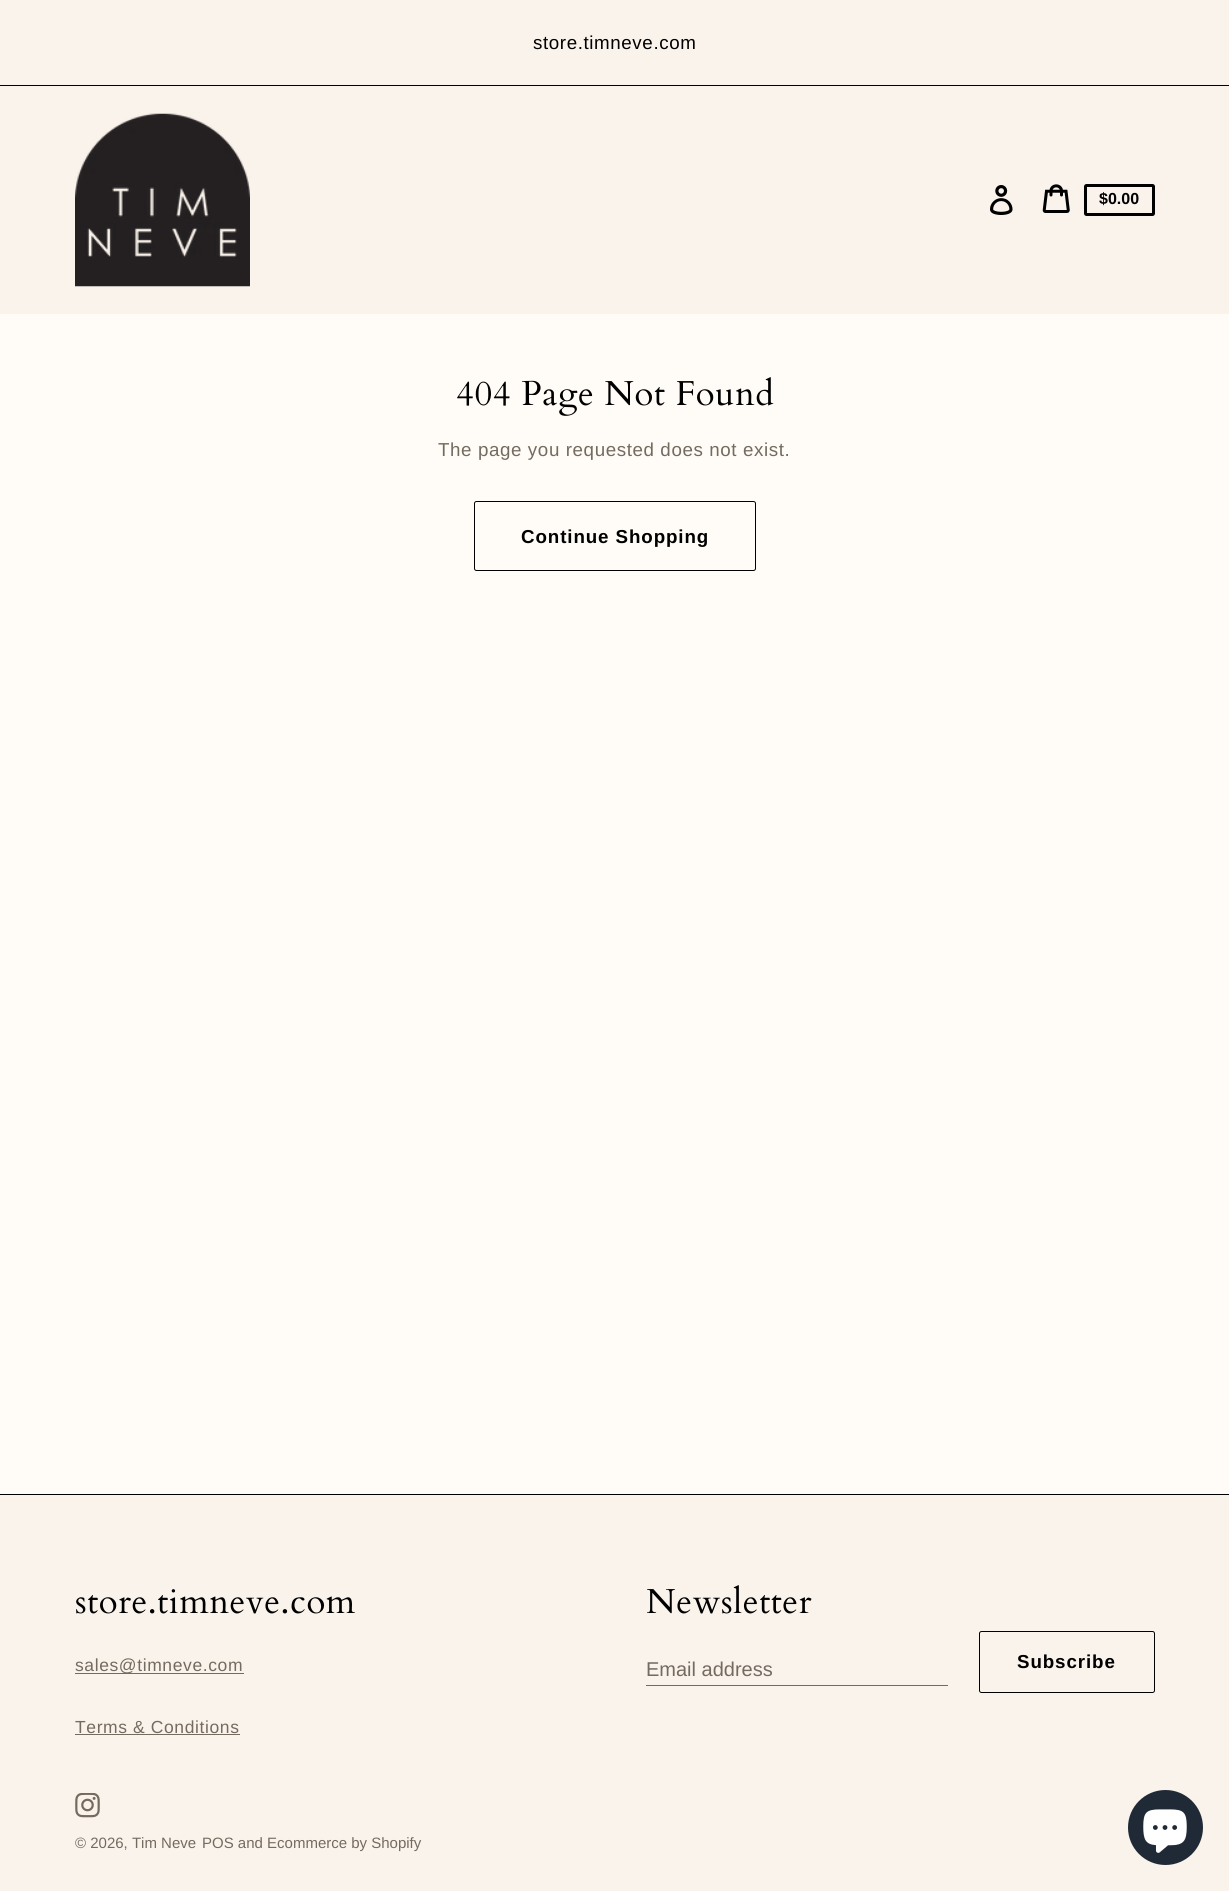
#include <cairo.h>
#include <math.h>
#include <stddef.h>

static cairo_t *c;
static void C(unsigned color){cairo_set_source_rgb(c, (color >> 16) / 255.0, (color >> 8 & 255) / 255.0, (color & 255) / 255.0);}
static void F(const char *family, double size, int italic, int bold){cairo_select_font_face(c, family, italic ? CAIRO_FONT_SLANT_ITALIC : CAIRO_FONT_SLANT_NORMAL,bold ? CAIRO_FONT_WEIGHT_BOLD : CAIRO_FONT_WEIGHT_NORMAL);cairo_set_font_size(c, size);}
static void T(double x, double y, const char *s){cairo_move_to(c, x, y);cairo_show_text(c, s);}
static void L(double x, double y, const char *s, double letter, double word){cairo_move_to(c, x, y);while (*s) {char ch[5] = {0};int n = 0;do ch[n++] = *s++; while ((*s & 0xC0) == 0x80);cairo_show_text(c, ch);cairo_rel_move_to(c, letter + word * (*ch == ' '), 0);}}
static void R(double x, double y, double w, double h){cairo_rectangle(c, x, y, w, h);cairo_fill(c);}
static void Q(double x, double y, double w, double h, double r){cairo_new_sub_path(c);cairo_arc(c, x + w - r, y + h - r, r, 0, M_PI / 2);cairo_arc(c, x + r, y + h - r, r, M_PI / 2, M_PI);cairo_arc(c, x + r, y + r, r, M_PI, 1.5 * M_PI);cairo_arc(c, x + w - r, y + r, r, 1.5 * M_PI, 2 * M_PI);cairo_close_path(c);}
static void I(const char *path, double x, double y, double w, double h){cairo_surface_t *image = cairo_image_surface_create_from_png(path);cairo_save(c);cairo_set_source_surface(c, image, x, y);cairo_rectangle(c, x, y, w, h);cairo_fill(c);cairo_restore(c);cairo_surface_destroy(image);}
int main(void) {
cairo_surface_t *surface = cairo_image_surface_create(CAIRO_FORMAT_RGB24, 1229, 1891);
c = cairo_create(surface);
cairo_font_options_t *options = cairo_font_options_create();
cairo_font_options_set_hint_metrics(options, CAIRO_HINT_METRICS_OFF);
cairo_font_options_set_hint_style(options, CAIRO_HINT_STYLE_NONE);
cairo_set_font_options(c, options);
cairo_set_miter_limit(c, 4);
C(0xfffbf6);
cairo_paint(c);
C(0xfaf3ec);
R(0,0,1229,85);
C(0x000000);
R(0,85,1229,1);
F("Liberation Sans",18.75,0,0);
L(533,49,"store.timneve.com",.6,0);
C(0xfaf3ec);
R(0,86,1229,228);
I("1.png",75,113,175,174);
I("2.png",990,185,23,30);
I("3.png",1042,184,28,29);
Q(1085.5,185.5,68,29,1);
C(0x000000);
cairo_set_line_width(c,3);
cairo_stroke(c);
F("Liberation Sans",16,0,1);
T(1099,204,"$0.00");
F("Cardo",34.75,0,0);
L(456,405,"404 Page Not Found",.6,0);
F("Liberation Sans",18.75,0,0);
C(0x746b60);
L(438,456,"The page you requested does not exist.",.6,0);
Q(474.5,501.5,281,69,2);
C(0x000000);
cairo_set_line_width(c,1);
cairo_stroke(c);
F("Liberation Sans",18.75,0,1);
L(521,543,"Continue Shopping",.9,0);
C(0xfaf3ec);
R(0,1495,1229,396);
C(0x000000);
R(0,1494,1229,1);
F("Cardo",34.75,0,0);
L(75,1613,"store.timneve.com",.6,0);
C(0x746b60);
R(75,1673,169,1);
F("Liberation Sans",17.5,0,0);
L(75,1671,"sales@timneve.com",.6,0);
L(75,1733,"Terms & Conditions",.6,0);
R(75,1734,165,1);
F("Cardo",34.75,0,0);
C(0x000000);
L(646,1613,"Newsletter",.6,0);
F("Liberation Sans",20,0,0);
C(0x746b60);
T(646,1676,"Email address");
R(646,1685,302,1);
Q(979.5,1631.5,175,61,2);
C(0x000000);
cairo_stroke(c);
F("Liberation Sans",18.75,0,1);
L(1017,1668,"Subscribe",.9,0);
I("4.png",75,1793,25,25);
F("Liberation Sans",15,0,0);
C(0x746b60);
T(75,1848,"© 2026, Tim Neve");
T(202,1848,"POS and Ecommerce by Shopify");
C(0x202a36);
cairo_new_path(c);
cairo_arc(c,1165.5,1827.5,37.5,0,2 * M_PI);
cairo_fill(c);
I("5.png",1143,1809,44,44);
cairo_surface_write_to_png(surface, "o.png");
cairo_font_options_destroy(options);
cairo_destroy(c);
cairo_surface_destroy(surface);
return 0;
}
